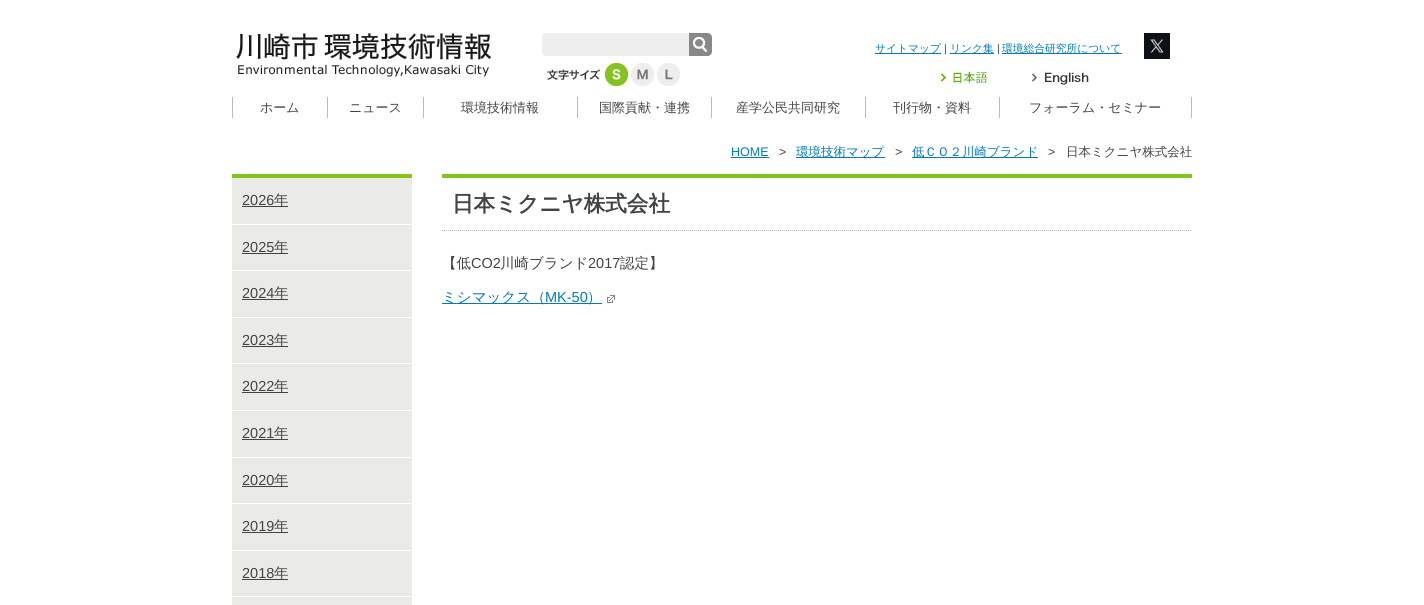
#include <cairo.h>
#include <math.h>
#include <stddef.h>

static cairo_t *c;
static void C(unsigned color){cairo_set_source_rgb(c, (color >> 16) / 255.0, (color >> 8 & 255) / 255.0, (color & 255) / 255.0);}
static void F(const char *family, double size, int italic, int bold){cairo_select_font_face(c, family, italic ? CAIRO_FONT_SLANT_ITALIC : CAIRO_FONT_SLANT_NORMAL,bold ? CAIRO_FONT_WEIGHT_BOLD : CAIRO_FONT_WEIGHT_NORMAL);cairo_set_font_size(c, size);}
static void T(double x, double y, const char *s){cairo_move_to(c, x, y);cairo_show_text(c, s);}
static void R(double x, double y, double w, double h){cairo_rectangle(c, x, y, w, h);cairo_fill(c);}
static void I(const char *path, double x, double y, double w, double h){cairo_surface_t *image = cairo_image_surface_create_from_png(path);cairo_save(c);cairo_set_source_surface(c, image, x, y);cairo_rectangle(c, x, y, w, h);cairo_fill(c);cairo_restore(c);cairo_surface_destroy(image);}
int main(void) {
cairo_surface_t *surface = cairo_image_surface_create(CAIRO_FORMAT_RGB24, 1424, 605);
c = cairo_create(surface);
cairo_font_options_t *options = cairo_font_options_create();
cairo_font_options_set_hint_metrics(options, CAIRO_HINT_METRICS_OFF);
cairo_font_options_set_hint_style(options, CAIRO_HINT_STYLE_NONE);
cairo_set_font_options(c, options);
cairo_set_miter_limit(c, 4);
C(0xffffff);
cairo_paint(c);
I("1.png",236,33,255,44);
I("2.png",542,33,147,23);
I("3.png",689,33,23,23);
C(0x007abb);
R(875,53,66,1);
F("WenQuanYi Zen Hei Medium",10.75,0,0);
T(875,52,"サイトマップ");
F("Liberation Sans",10.75,0,0);
C(0x444444);
T(944,52,"|");
C(0x007abb);
R(950,53,44,1);
F("WenQuanYi Zen Hei Medium",10.75,0,0);
T(950,52,"リンク集");
F("Liberation Sans",10.75,0,0);
C(0x444444);
T(997,52,"|");
C(0x007abb);
R(1002,53,120,1);
F("WenQuanYi Zen Hei Medium",10.75,0,0);
T(1002,52,"環境総合研究所について");
I("4.png",1144,33,26,26);
I("5.png",547,69,53,11);
I("6.png",605,61,24,26);
I("7.png",631,63,23,23);
I("8.png",657,63,23,23);
I("9.png",936,70,56,15);
I("10.png",1032,70,60,15);
C(0xb9b9b9);
R(327,97,1,21);
R(232,97,1,21);
F("WenQuanYi Zen Hei Medium",13,0,0);
C(0x444444);
T(260,112,"ホーム");
C(0xb9b9b9);
R(423,97,1,21);
C(0x444444);
T(349,112,"ニュース");
C(0xb9b9b9);
R(577,97,1,21);
C(0x444444);
T(461,112,"環境技術情報");
C(0xb9b9b9);
R(711,97,1,21);
C(0x444444);
T(599,112,"国際貢献・連携");
C(0xb9b9b9);
R(865,97,1,21);
C(0x444444);
T(736,112,"産学公民共同研究");
C(0xb9b9b9);
R(999,97,1,21);
C(0x444444);
T(893,112,"刊行物・資料");
C(0xb9b9b9);
R(1191,97,1,21);
C(0x444444);
T(1029,112,"フォーラム・セミナー");
F("Liberation Sans",12.5,0,0);
C(0x007abb);
T(731,156,"HOME");
R(731,157,38,1);
C(0x444444);
T(779,156,">");
C(0x007abb);
R(796,157,89,1);
F("WenQuanYi Zen Hei Medium",12.5,0,0);
T(796,156,"環境技術マップ");
F("Liberation Sans",12.5,0,0);
C(0x444444);
T(895,156,">");
C(0x007abb);
R(912,157,126,1);
F("WenQuanYi Zen Hei Medium",12.5,0,0);
T(912,156,"低ＣＯ２川崎ブランド");
F("Liberation Sans",12.5,0,0);
C(0x444444);
T(1048,156,">");
F("WenQuanYi Zen Hei Medium",12.5,0,0);
T(1066,156,"日本ミクニヤ株式会社");
C(0x85c41e);
R(232,174,180,4);
C(0xeaebe6);
R(232,178,180,46);
F("Liberation Sans",14.5,0,0);
C(0x444444);
T(242,205,"2026");
R(242,206,46,1);
F("WenQuanYi Zen Hei Medium",14.5,0,0);
T(274,205,"年");
C(0xeaebe6);
R(232,225,180,45);
F("Liberation Sans",14.5,0,0);
C(0x444444);
T(242,252,"2025");
R(242,253,46,1);
F("WenQuanYi Zen Hei Medium",14.5,0,0);
T(274,252,"年");
C(0xeaebe6);
R(232,271,180,46);
F("Liberation Sans",14.5,0,0);
C(0x444444);
T(242,298,"2024");
R(242,299,46,1);
F("WenQuanYi Zen Hei Medium",14.5,0,0);
T(274,298,"年");
C(0xeaebe6);
R(232,318,180,45);
F("Liberation Sans",14.5,0,0);
C(0x444444);
T(242,345,"2023");
R(242,346,46,1);
F("WenQuanYi Zen Hei Medium",14.5,0,0);
T(274,345,"年");
C(0xeaebe6);
R(232,364,180,46);
F("Liberation Sans",14.5,0,0);
C(0x444444);
T(242,391,"2022");
R(242,392,46,1);
F("WenQuanYi Zen Hei Medium",14.5,0,0);
T(274,391,"年");
C(0xeaebe6);
R(232,411,180,46);
F("Liberation Sans",14.5,0,0);
C(0x444444);
T(242,438,"2021");
R(242,439,46,1);
F("WenQuanYi Zen Hei Medium",14.5,0,0);
T(274,438,"年");
C(0xeaebe6);
R(232,458,180,45);
F("Liberation Sans",14.5,0,0);
C(0x444444);
T(242,485,"2020");
R(242,486,46,1);
F("WenQuanYi Zen Hei Medium",14.5,0,0);
T(274,485,"年");
C(0xeaebe6);
R(232,504,180,46);
F("Liberation Sans",14.5,0,0);
C(0x444444);
T(242,531,"2019");
R(242,532,46,1);
F("WenQuanYi Zen Hei Medium",14.5,0,0);
T(274,531,"年");
C(0xeaebe6);
R(232,551,180,45);
F("Liberation Sans",14.5,0,0);
C(0x444444);
T(242,578,"2018");
R(242,579,46,1);
F("WenQuanYi Zen Hei Medium",14.5,0,0);
T(274,578,"年");
C(0xeaebe6);
R(232,597,180,8);
C(0x85c41e);
R(442,174,750,4);
cairo_new_path(c);
cairo_move_to(c,442,230.5);
cairo_line_to(c,1192,230.5);
C(0xb9b9b9);
cairo_set_line_width(c,1);
cairo_set_dash(c,(double[]){1,1},2,0);
cairo_stroke(c);
F("WenQuanYi Zen Hei",21.6,0,1);
C(0x444444);
T(452,211,"日本ミクニヤ株式会社");
F("WenQuanYi Zen Hei Medium",14.5,0,0);
T(442,268,"【低");
F("Liberation Sans",14.5,0,0);
T(471,268,"CO2");
F("WenQuanYi Zen Hei Medium",14.5,0,0);
T(500,268,"川崎ブランド");
F("Liberation Sans",14.5,0,0);
T(588,268,"2017");
F("WenQuanYi Zen Hei Medium",14.5,0,0);
T(620,268,"認定】");
C(0x007abb);
R(442,303,160,1);
T(442,302,"ミシマックス（");
F("Liberation Sans",14.5,0,0);
T(545,302,"MK-50");
F("WenQuanYi Zen Hei Medium",14.5,0,0);
T(587,302,"）");
I("11.png",607,295,8,8);
cairo_surface_write_to_png(surface, "o.png");
cairo_font_options_destroy(options);
cairo_destroy(c);
cairo_surface_destroy(surface);
return 0;
}
